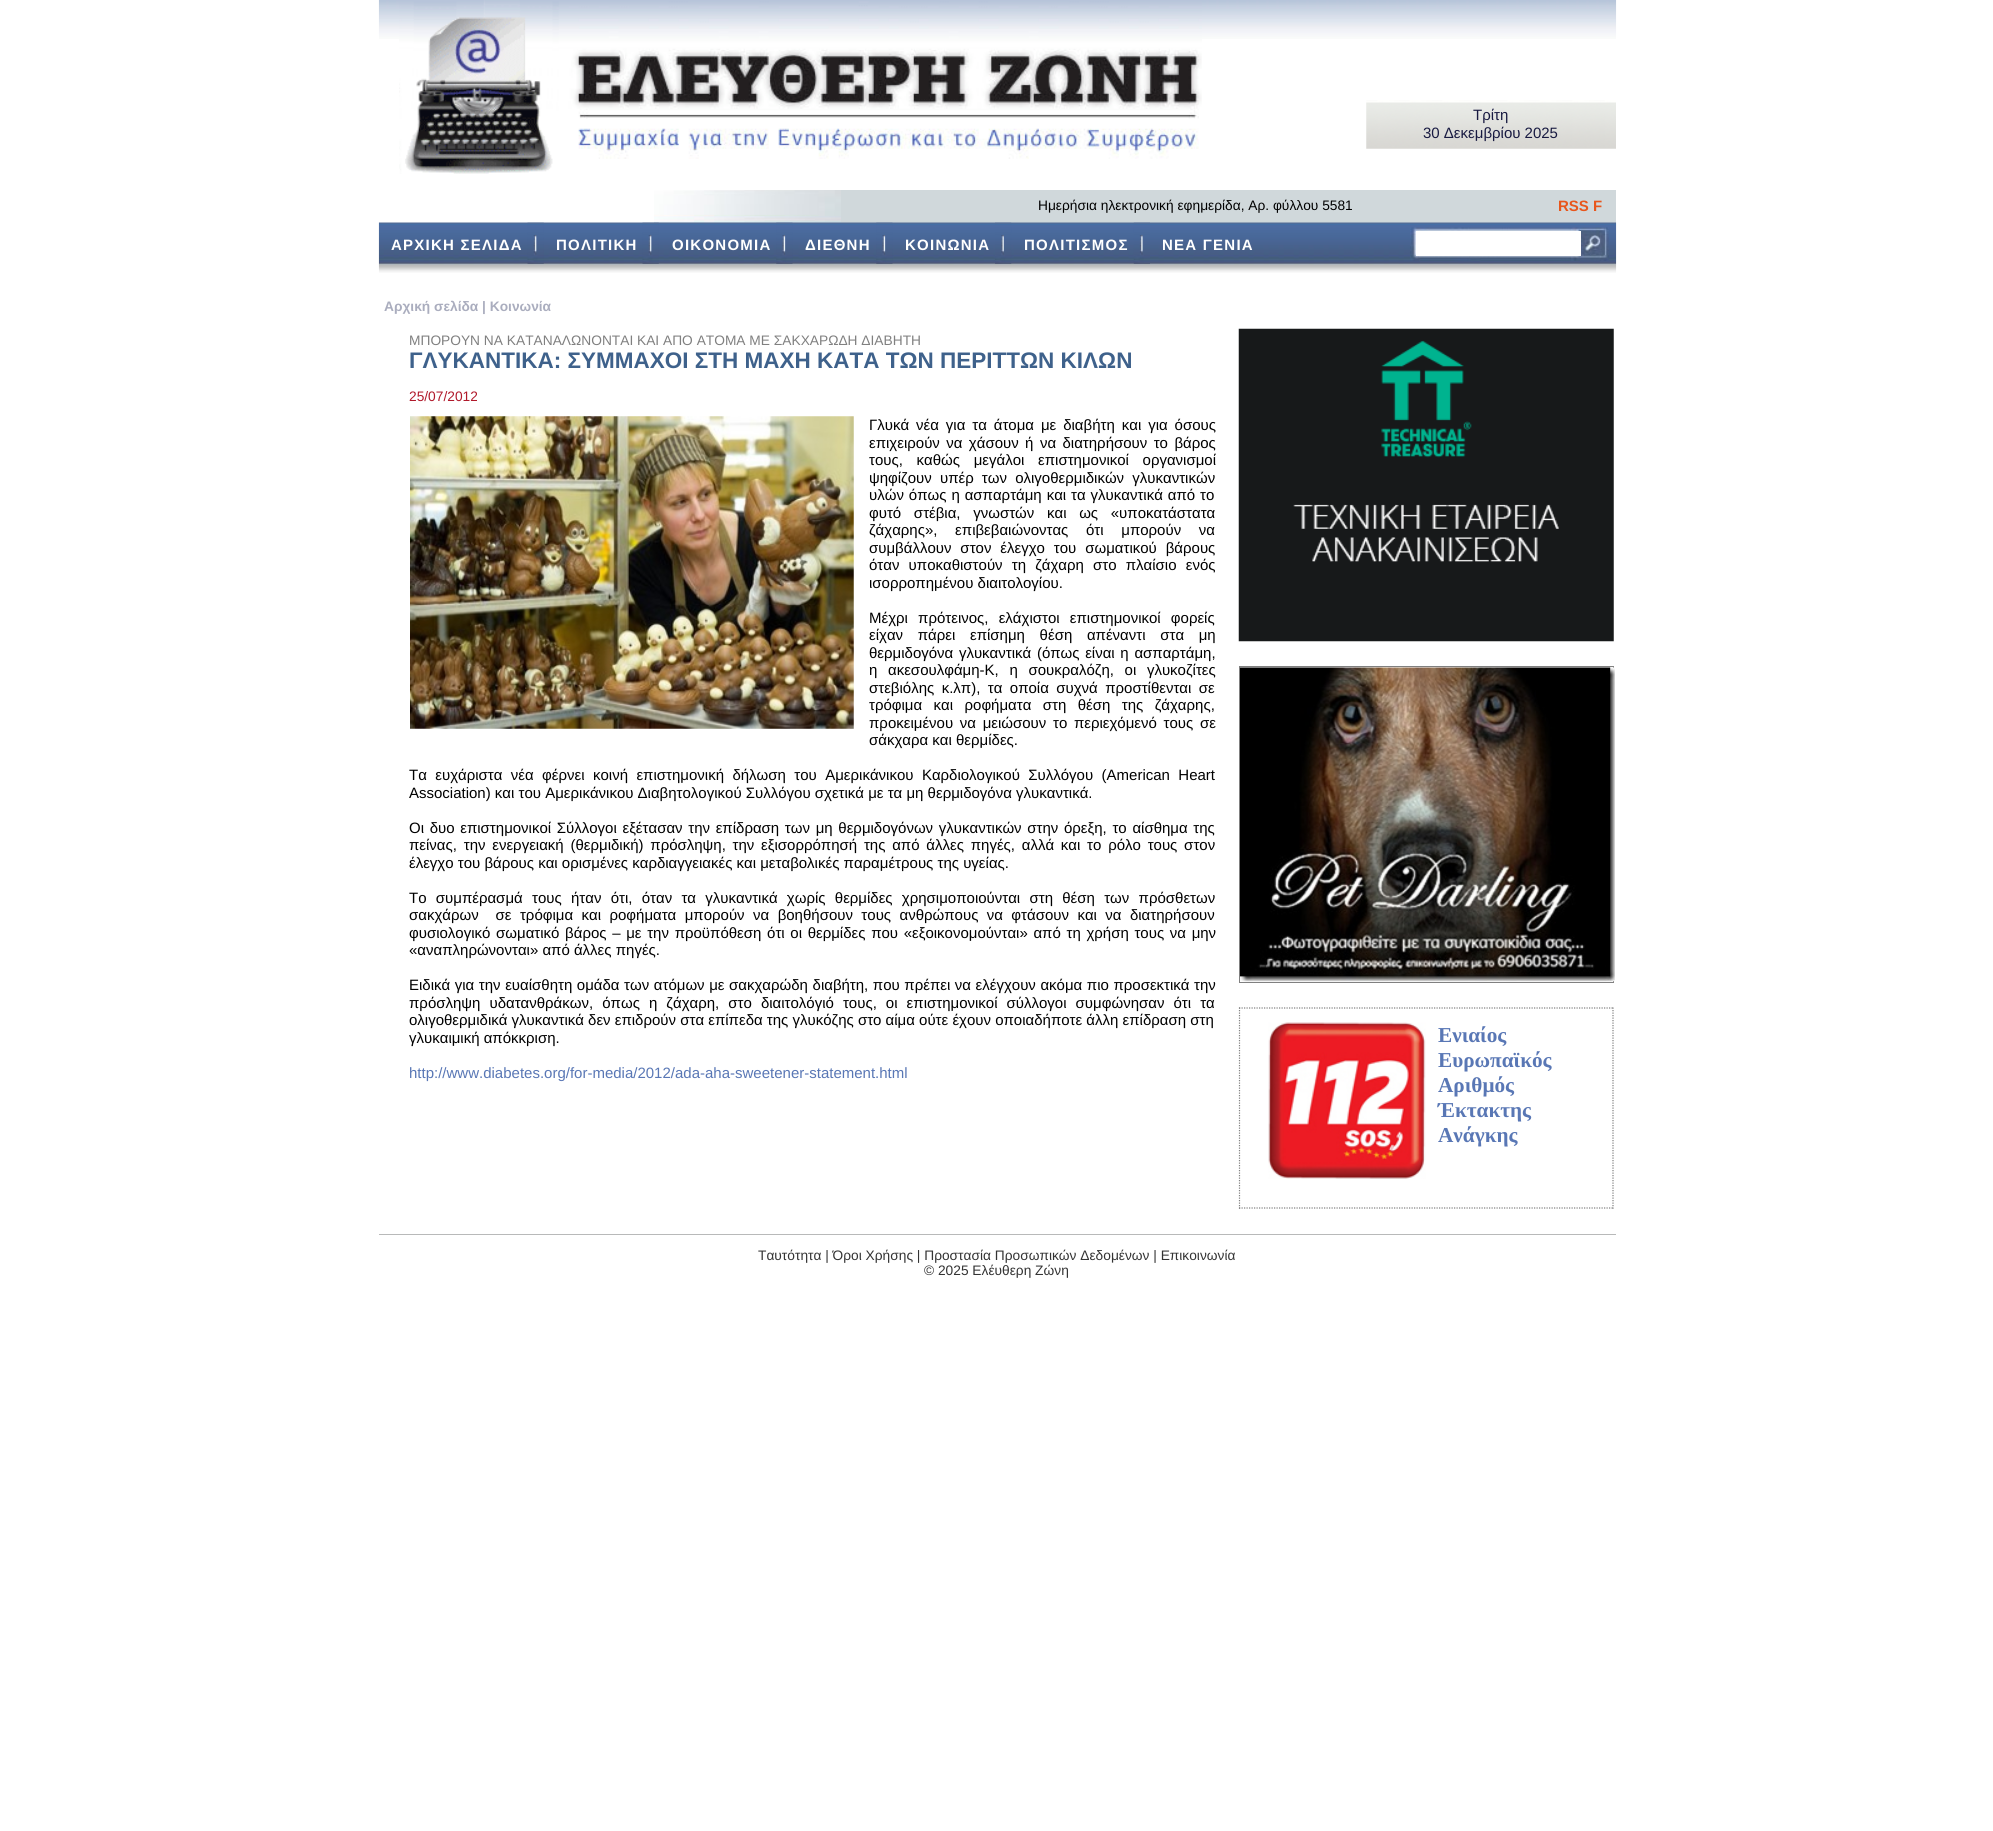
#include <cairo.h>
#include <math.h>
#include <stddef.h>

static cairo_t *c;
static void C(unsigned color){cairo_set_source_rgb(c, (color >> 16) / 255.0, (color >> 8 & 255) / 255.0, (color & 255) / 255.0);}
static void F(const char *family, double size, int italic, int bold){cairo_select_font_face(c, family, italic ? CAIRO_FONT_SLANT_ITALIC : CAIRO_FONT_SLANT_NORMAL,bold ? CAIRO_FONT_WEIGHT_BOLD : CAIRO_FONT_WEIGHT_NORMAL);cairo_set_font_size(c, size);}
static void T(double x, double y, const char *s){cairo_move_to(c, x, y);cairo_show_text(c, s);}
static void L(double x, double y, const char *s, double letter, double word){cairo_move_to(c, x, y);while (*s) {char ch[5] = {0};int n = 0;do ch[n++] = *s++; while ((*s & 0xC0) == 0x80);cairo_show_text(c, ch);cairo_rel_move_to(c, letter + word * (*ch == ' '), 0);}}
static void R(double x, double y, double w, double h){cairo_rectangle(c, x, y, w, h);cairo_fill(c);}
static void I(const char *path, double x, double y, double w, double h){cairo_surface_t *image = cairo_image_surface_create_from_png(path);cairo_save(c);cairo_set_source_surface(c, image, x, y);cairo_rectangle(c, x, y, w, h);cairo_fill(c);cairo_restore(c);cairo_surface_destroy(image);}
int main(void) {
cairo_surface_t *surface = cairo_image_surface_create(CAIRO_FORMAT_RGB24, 1993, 1831);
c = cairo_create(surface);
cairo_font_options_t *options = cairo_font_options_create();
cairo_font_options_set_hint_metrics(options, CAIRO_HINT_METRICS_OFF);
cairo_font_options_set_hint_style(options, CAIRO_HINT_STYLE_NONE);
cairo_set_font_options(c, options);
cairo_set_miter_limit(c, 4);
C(0xffffff);
cairo_paint(c);
I("1.png",378,0,1239,39);
I("2.png",399,0,803,174);
I("3.png",1366,100,250,49);
F("Liberation Sans",15,0,0);
C(0x181a41);
T(1473,120,"Τρίτη");
T(1423,138,"30 Δεκεμβρίου 2025");
C(0xd0d8db);
R(654,190,962,33);
I("4.png",654,190,187,33);
F("Liberation Sans",13.75,0,0);
C(0x000000);
T(1038,210,"Ημερήσια ηλεκτρονική εφημερίδα, Αρ. φύλλου 5581");
F("Liberation Sans",15,0,1);
C(0xe8561c);
T(1558,211,"RSS F");
I("5.png",378,222,1239,51);
I("6.png",527,222,17,42);
C(0xffffff);
L(391,250,"ΑΡΧΙΚΗ ΣΕΛΙΔΑ",1.25,0);
I("7.png",642,222,17,42);
L(556,250,"ΠΟΛΙΤΙΚΗ",1.25,0);
I("8.png",776,222,17,42);
L(672,250,"ΟΙΚΟΝΟΜΙΑ",1.25,0);
I("9.png",876,222,17,42);
L(805,250,"ΔΙΕΘΝΗ",1.25,0);
I("10.png",995,222,17,42);
L(905,250,"ΚΟΙΝΩΝΙΑ",1.25,0);
I("11.png",1133,222,17,42);
L(1024,250,"ΠΟΛΙΤΙΣΜΟΣ",1.25,0);
L(1162,250,"ΝΕΑ ΓΕΝΙΑ",1.25,0);
I("12.png",1410,227,199,34);
R(1416,231,165,25);
F("Liberation Sans",13.75,0,1);
C(0xaaadbe);
T(384,311,"Aρχική σελίδα | Κοινωνία");
F("Liberation Sans",13.75,0,0);
C(0x808080);
T(409,345,"ΜΠΟΡΟΥΝ ΝΑ ΚΑΤΑΝΑΛΩΝΟΝΤΑΙ ΚΑΙ ΑΠΟ ΑΤΟΜΑ ΜΕ ΣΑΚΧΑΡΩΔΗ ΔΙΑΒΗΤΗ");
F("Liberation Sans",22.5,0,1);
C(0x3e618b);
T(409,368,"ΓΛΥΚΑΝΤΙΚΑ: ΣΥΜΜΑΧΟΙ ΣΤΗ ΜΑΧΗ ΚΑΤΑ ΤΩΝ ΠΕΡΙΤΤΩΝ ΚΙΛΩΝ");
F("Liberation Sans",13.75,0,0);
C(0xb0192b);
T(409,401,"25/07/2012");
I("13.png",410,416,444,313);
F("Liberation Sans",15,0,0);
C(0x000000);
L(869,430,"Γλυκά νέα για τα άτομα με διαβήτη και για όσους",0,2.75);
L(869,448,"επιχειρούν να χάσουν ή να διατηρήσουν το βάρος",0,2.25);
L(869,465,"τους, καθώς μεγάλοι επιστημονικοί οργανισμοί",0,9.5);
L(869,483,"ψηφίζουν υπέρ των ολιγοθερμιδικών γλυκαντικών",0,4);
L(869,500,"υλών όπως η ασπαρτάμη και τα γλυκαντικά από το",0,.75);
L(869,518,"φυτό στέβια, γνωστών και ως «υποκατάστατα",0,8.5);
L(869,535,"ζάχαρης», επιβεβαιώνοντας ότι μπορούν να",0,13.5);
L(869,553,"συμβάλλουν στον έλεγχο του σωματικού βάρους",0,4.75);
L(869,570,"όταν υποκαθιστούν τη ζάχαρη στο πλαίσιο ενός",0,5);
T(869,588,"ισορροπημένου διαιτολογίου.");
L(869,623,"Μέχρι πρότεινος, ελάχιστοι επιστημονικοί φορείς",0,6);
L(869,640,"είχαν πάρει επίσημη θέση απέναντι στα μη",0,10.5);
L(869,658,"θερμιδογόνα γλυκαντικά (όπως είναι η ασπαρτάμη,",0,1.5);
L(869,675,"η ακεσουλφάμη-Κ, η σουκραλόζη, οι γλυκοζίτες",0,6.5);
L(869,693,"στεβιόλης κ.λπ), τα οποία συχνά προστίθενται σε",0,3.25);
L(869,710,"τρόφιμα και ροφήματα στη θέση της ζάχαρης,",0,7.25);
L(869,728,"προκειμένου να μειώσουν το περιεχόμενό τους σε",0,2.5);
T(869,745,"σάκχαρα και θερμίδες.");
L(409,780,"Τα ευχάριστα νέα φέρνει κοινή επιστημονική δήλωση του Αμερικάνικου Καρδιολογικού Συλλόγου (American Heart",0,4.25);
T(409,798,"Association) και του Αμερικάνικου Διαβητολογικού Συλλόγου σχετικά με τα μη θερμιδογόνα γλυκαντικά.");
L(409,833,"Οι δυο επιστημονικοί Σύλλογοι εξέτασαν την επίδραση των μη θερμιδογόνων γλυκαντικών στην όρεξη, το αίσθημα της",0,1.5);
L(409,850,"πείνας, την ενεργειακή (θερμιδική) πρόσληψη, την εξισορρόπησή της από άλλες πηγές, αλλά και το ρόλο τους στον",0,2.6);
T(409,868,"έλεγχο του βάρους και ορισμένες καρδιαγγειακές και μεταβολικές παραμέτρους της υγείας.");
L(409,903,"Το συμπέρασμά τους ήταν ότι, όταν τα γλυκαντικά χωρίς θερμίδες χρησιμοποιούνται στη θέση των πρόσθετων",0,5.1);
L(409,920,"σακχάρων  σε τρόφιμα και ροφήματα μπορούν να βοηθήσουν τους ανθρώπους να φτάσουν και να διατηρήσουν",0,4.25);
L(409,938,"φυσιολογικό σωματικό βάρος – με την προϋπόθεση ότι οι θερμίδες που «εξοικονομούνται» από τη χρήση τους να μην",0,1.5);
T(409,955,"«αναπληρώνονται» από άλλες πηγές.");
L(409,990,"Ειδικά για την ευαίσθητη ομάδα των ατόμων με σακχαρώδη διαβήτη, που πρέπει να ελέγχουν ακόμα πιο προσεκτικά την",0,.4);
L(409,1008,"πρόσληψη υδατανθράκων, όπως η ζάχαρη, στο διαιτολόγιό τους, οι επιστημονικοί σύλλογοι συμφώνησαν ότι τα",0,4.9);
T(409,1025,"ολιγοθερμιδικά γλυκαντικά δεν επιδρούν στα επίπεδα της γλυκόζης στο αίμα ούτε έχουν οποιαδήποτε άλλη επίδραση στη");
T(409,1043,"γλυκαιμική απόκκριση.");
C(0x5977b5);
T(409,1078,"http://www.diabetes.org/for-media/2012/ada-aha-sweetener-statement.html");
I("14.png",1238,328,376,314);
cairo_rectangle(c,1239.5,666.5,374,316);
C(0x808080);
cairo_set_line_width(c,1);
cairo_stroke(c);
I("15.png",1240,667,375,315);
cairo_new_path(c);
cairo_move_to(c,1239,1008);
cairo_line_to(c,1614,1008);
cairo_set_line_width(c,1.2);
cairo_set_dash(c,(double[]){1.25,1.25},2,0);
cairo_stroke(c);
cairo_new_path(c);
cairo_move_to(c,1613,1007.5);
cairo_line_to(c,1613,1209);
cairo_stroke(c);
cairo_new_path(c);
cairo_move_to(c,1239,1208);
cairo_line_to(c,1614,1208);
cairo_stroke(c);
cairo_new_path(c);
cairo_move_to(c,1239.5,1007.5);
cairo_line_to(c,1239.5,1209);
cairo_stroke(c);
I("16.png",1268,1022,158,157);
F("Liberation Serif",21.25,0,1);
C(0x5977b5);
T(1438,1042,"Ενιαίος");
T(1438,1067,"Ευρωπαϊκός");
T(1438,1092,"Αριθμός");
T(1438,1117,"Έκτακτης");
T(1438,1142,"Ανάγκης");
C(0xb8b9b9);
R(379,1234,1237,1);
F("Liberation Sans",13.75,0,0);
C(0x333333);
T(758,1260,"Ταυτότητα | Όροι Χρήσης | Προστασία Προσωπικών Δεδομένων | Επικοινωνία");
T(924,1275,"© 2025 Ελέυθερη Ζώνη");
cairo_surface_write_to_png(surface, "o.png");
cairo_font_options_destroy(options);
cairo_destroy(c);
cairo_surface_destroy(surface);
return 0;
}
